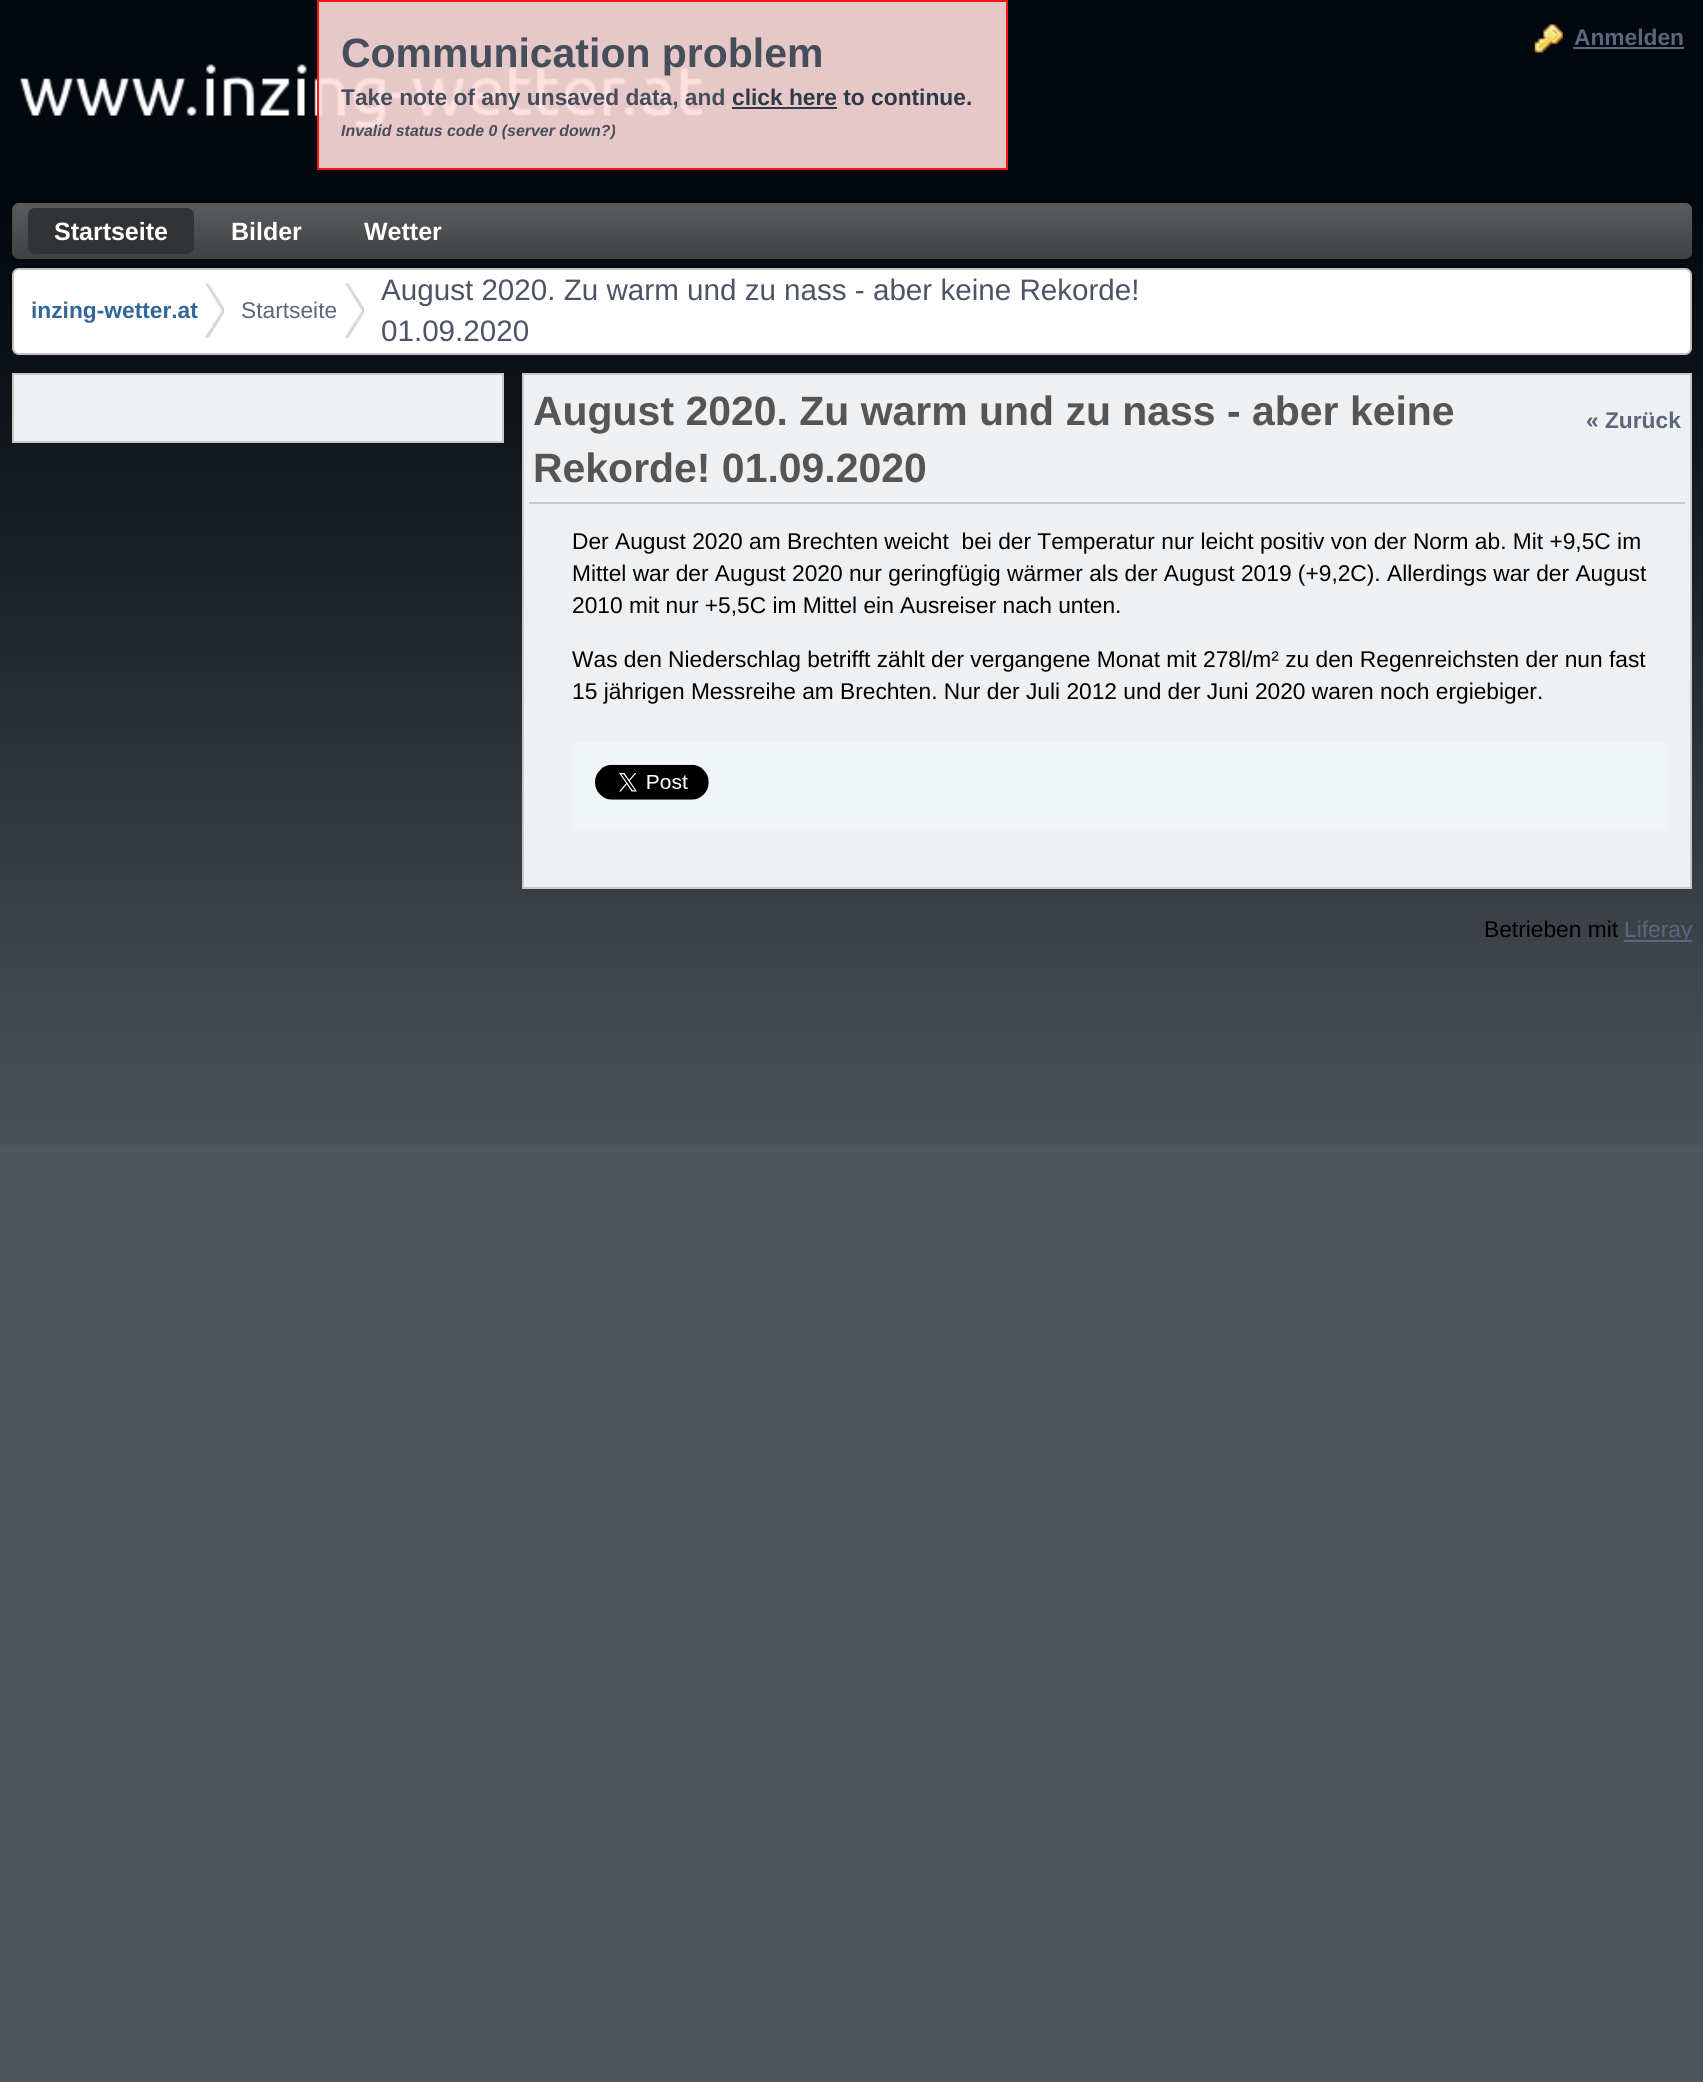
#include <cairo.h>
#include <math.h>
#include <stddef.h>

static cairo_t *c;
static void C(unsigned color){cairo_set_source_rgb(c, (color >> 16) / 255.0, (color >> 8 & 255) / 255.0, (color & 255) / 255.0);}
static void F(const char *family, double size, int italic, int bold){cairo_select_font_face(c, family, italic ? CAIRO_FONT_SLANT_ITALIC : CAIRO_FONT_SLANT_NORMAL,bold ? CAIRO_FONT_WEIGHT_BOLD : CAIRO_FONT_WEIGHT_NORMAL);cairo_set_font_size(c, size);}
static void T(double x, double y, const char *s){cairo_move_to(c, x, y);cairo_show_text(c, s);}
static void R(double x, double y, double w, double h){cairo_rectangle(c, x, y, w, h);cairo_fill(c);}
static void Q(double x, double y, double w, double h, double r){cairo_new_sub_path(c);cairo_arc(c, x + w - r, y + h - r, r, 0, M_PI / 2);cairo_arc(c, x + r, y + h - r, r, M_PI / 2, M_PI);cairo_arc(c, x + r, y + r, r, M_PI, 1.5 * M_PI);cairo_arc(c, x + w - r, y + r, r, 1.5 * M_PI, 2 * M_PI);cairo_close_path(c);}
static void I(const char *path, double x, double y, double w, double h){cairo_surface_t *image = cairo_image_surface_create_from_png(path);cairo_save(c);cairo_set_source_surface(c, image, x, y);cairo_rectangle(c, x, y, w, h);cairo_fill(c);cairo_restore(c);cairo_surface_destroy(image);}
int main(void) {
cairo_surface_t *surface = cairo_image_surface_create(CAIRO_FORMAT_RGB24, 1703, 2082);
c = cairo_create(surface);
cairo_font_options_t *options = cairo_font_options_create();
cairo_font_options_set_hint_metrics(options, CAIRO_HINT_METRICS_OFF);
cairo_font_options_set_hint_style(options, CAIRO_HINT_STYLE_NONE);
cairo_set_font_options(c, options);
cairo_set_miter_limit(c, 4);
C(0x4f555b);
cairo_paint(c);
I("1.png",0,0,1703,1145);
I("2.png",1534,24,29,29);
F("Liberation Sans",22.75,0,1);
C(0x5b677d);
T(1574,45,"Anmelden");
R(1573,47,111,2);
I("3.png",19,64,685,65);
C(0x414445);
Q(12,203,1680,56,7);
cairo_fill(c);
I("4.png",12,203,1681,55);
C(0x313334);
Q(28,208,166,46,7);
cairo_fill(c);
F("Liberation Sans",25,0,1);
C(0xffffff);
T(54,240,"Startseite");
T(231,240,"Bilder");
T(364,240,"Wetter");
Q(13,269,1678,85,6);
cairo_fill_preserve(c);
C(0xc0c2c5);
cairo_stroke(c);
I("5.png",204,283,20,55);
F("Liberation Sans",22.75,0,1);
C(0x336699);
T(31,318,"inzing-wetter.at");
I("5.png",344,283,20,55);
F("Liberation Sans",22.75,0,0);
C(0x5b677d);
T(241,318,"Startseite");
F("Liberation Sans",29.6,0,0);
C(0x4b5567);
T(381,300,"August 2020. Zu warm und zu nass - aber keine Rekorde!");
T(381,341,"01.09.2020");
C(0xeef0f2);
cairo_rectangle(c,13,374,490,68);
cairo_fill_preserve(c);
C(0xc8c9ca);
cairo_stroke(c);
C(0xeef0f2);
cairo_rectangle(c,523,374,1168,514);
cairo_fill_preserve(c);
C(0xc8c9ca);
cairo_stroke(c);
R(529,502,1156,2);
F("Liberation Sans",40.95,0,1);
C(0x555555);
T(533,425,"August 2020. Zu warm und zu nass - aber keine");
T(533,482,"Rekorde! 01.09.2020");
F("Liberation Sans",22.75,0,1);
C(0x5b677d);
T(1586,428,"« Zurück");
F("Liberation Sans",22.75,0,0);
C(0x000000);
T(572,549,"Der August 2020 am Brechten weicht  bei der Temperatur nur leicht positiv von der Norm ab. Mit +9,5C im");
T(572,581,"Mittel war der August 2020 nur geringfügig wärmer als der August 2019 (+9,2C). Allerdings war der August");
T(572,613,"2010 mit nur +5,5C im Mittel ein Ausreiser nach unten.");
T(572,667,"Was den Niederschlag betrifft zählt der vergangene Monat mit 278l/m² zu den Regenreichsten der nun fast");
T(572,699,"15 jährigen Messreihe am Brechten. Nur der Juli 2012 und der Juni 2020 waren noch ergiebiger.");
C(0xf0f5f7);
R(572,742,1096,89);
I("6.png",595,764,114,36);
C(0x000000);
T(1484,937,"Betrieben mit");
C(0x5b677d);
R(1624,940,68,2);
T(1624,937,"Liferay");
cairo_set_source_rgba(c,1,0.867,0.867,0.9);
R(317,0,691,170);
cairo_rectangle(c,318,1,689,168);
cairo_set_source_rgba(c,1,0,0,0.9);
cairo_stroke(c);
F("Liberation Sans",40.95,0,1);
C(0x464e5b);
T(341,67,"Communication problem");
F("Liberation Sans",22.75,0,1);
T(341,105,"Take note of any unsaved data, and");
C(0x2f3a49);
T(732,105,"click here to continue.");
R(732,107,105,2);
F("Liberation Sans",15.9,1,1);
C(0x464e5b);
T(341,136,"Invalid status code 0 (server down?)");
cairo_surface_write_to_png(surface, "o.png");
cairo_font_options_destroy(options);
cairo_destroy(c);
cairo_surface_destroy(surface);
return 0;
}
